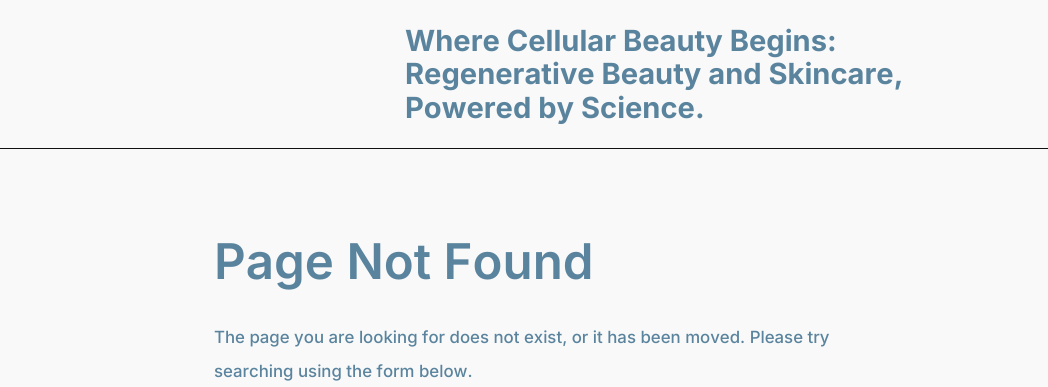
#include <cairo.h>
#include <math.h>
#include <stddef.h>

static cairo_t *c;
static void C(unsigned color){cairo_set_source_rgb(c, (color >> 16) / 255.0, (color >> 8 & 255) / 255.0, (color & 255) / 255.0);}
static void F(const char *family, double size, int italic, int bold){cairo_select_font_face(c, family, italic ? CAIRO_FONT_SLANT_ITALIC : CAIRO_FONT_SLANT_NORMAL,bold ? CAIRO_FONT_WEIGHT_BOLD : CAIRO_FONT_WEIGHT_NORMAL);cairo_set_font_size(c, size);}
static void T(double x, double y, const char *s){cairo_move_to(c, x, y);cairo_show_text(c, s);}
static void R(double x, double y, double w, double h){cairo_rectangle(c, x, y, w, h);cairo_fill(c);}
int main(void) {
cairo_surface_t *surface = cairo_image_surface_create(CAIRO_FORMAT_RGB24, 1048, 387);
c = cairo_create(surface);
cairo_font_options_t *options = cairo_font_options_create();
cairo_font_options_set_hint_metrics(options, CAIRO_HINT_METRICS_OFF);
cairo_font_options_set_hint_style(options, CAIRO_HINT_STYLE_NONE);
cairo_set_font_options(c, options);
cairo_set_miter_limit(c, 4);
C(0xf9f9f9);
cairo_paint(c);
F("Inter",29.1,0,1);
C(0x5a849e);
T(405,51,"Where Cellular Beauty Begins:");
T(405,84,"Regenerative Beauty and Skincare,");
T(405,118,"Powered by Science.");
C(0x111111);
R(0,148,1048,1);
F("Inter SemiBold",49.25,0,0);
C(0x5a849e);
T(214,279,"Page Not Found");
F("Inter Medium",16.8,0,0);
T(214,343,"The page you are looking for does not exist, or it has been moved. Please try");
T(214,377,"searching using the form below.");
cairo_surface_write_to_png(surface, "o.png");
cairo_font_options_destroy(options);
cairo_destroy(c);
cairo_surface_destroy(surface);
return 0;
}
